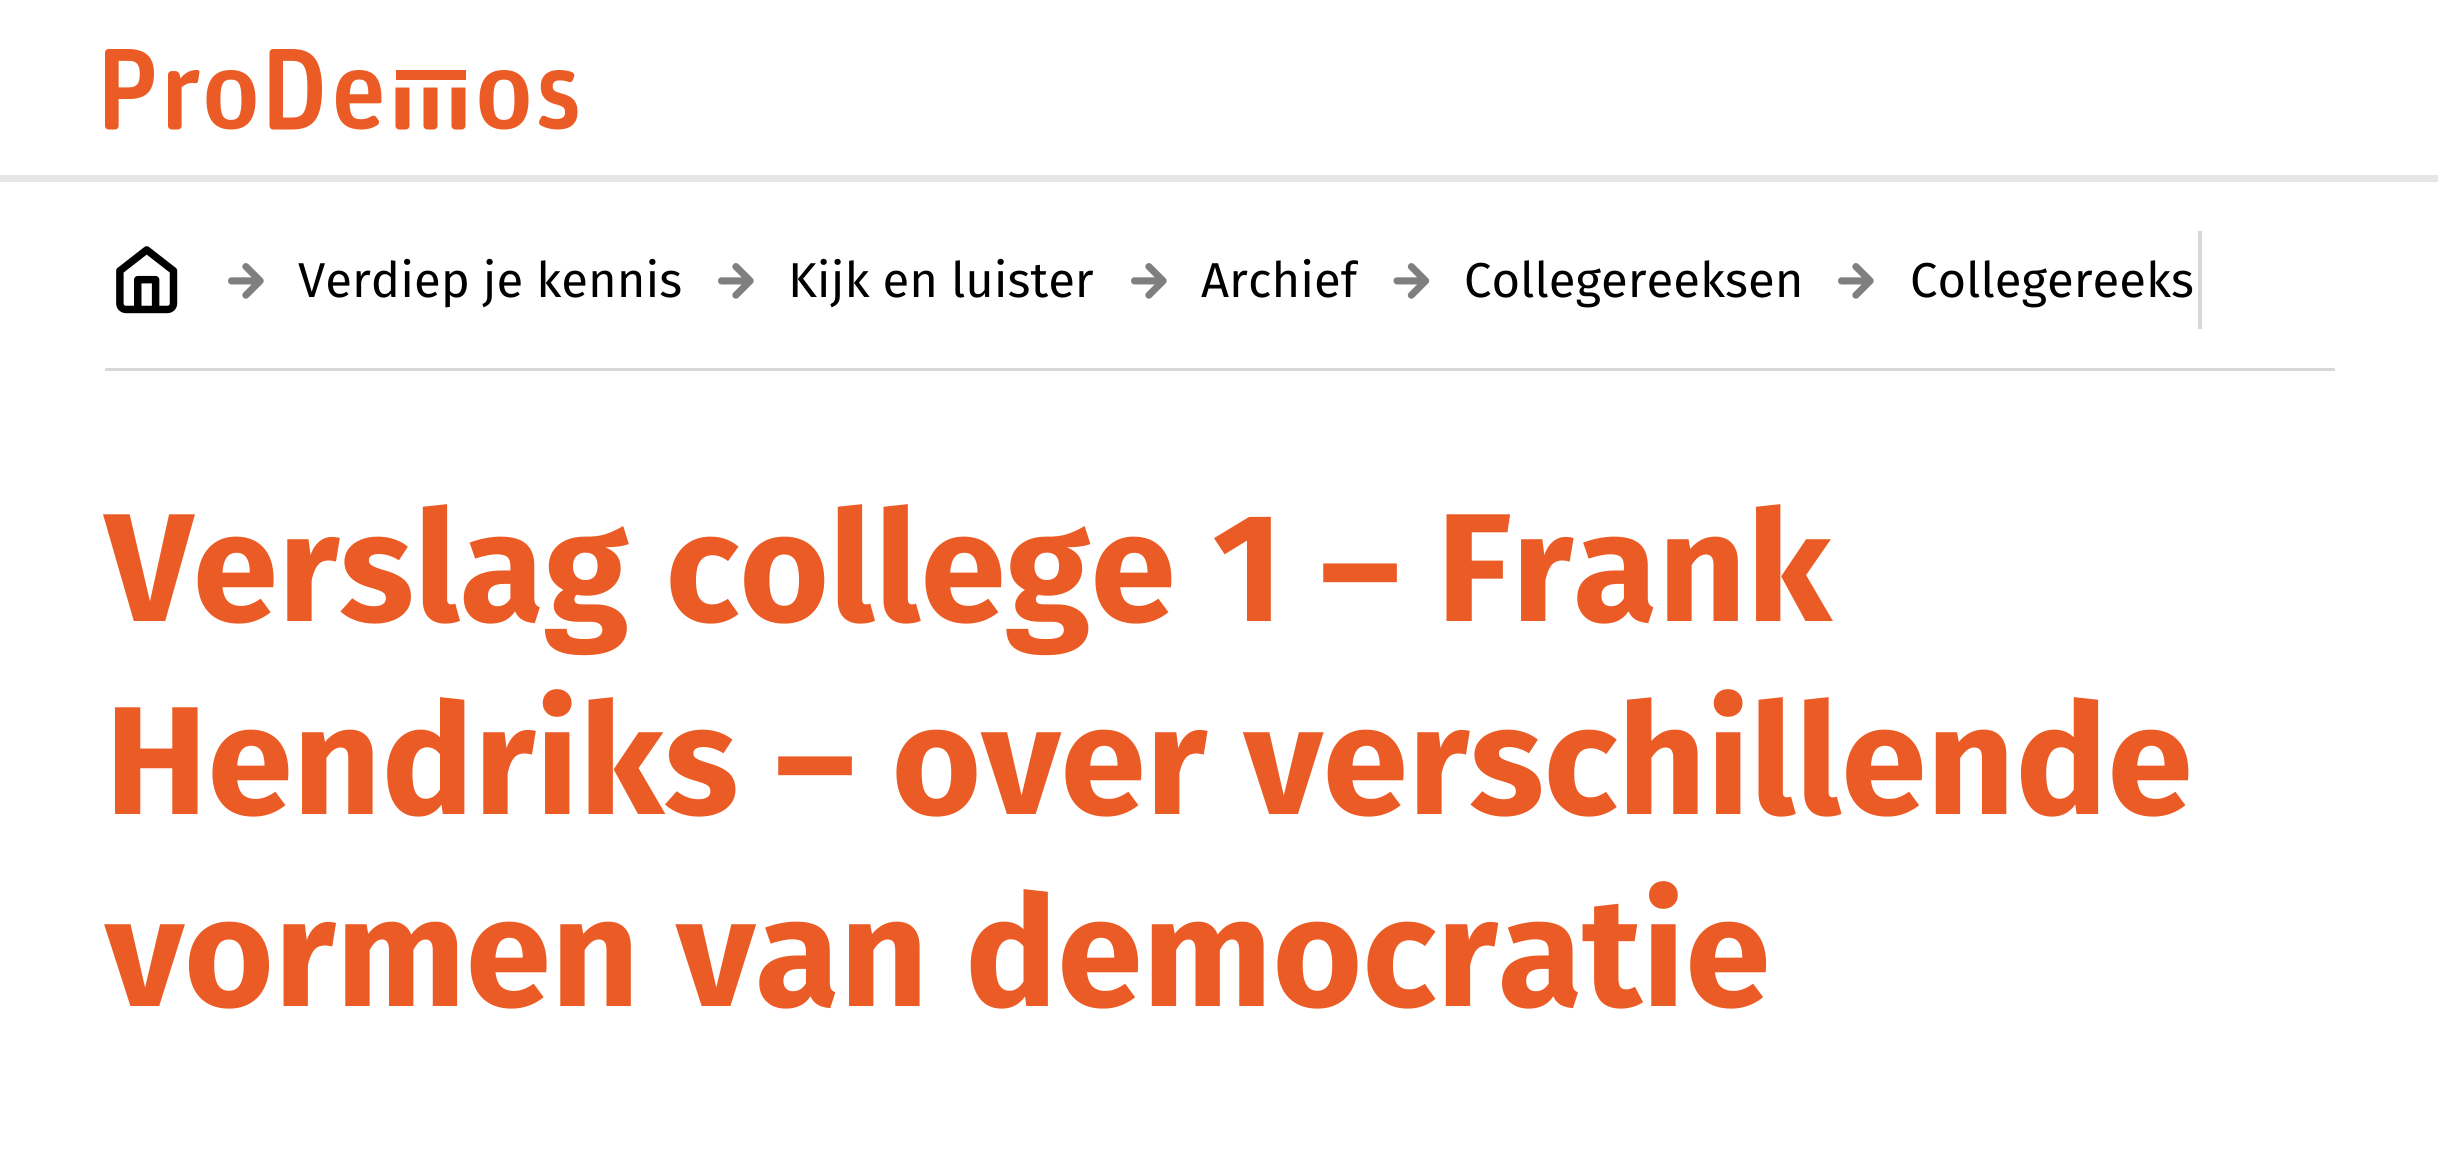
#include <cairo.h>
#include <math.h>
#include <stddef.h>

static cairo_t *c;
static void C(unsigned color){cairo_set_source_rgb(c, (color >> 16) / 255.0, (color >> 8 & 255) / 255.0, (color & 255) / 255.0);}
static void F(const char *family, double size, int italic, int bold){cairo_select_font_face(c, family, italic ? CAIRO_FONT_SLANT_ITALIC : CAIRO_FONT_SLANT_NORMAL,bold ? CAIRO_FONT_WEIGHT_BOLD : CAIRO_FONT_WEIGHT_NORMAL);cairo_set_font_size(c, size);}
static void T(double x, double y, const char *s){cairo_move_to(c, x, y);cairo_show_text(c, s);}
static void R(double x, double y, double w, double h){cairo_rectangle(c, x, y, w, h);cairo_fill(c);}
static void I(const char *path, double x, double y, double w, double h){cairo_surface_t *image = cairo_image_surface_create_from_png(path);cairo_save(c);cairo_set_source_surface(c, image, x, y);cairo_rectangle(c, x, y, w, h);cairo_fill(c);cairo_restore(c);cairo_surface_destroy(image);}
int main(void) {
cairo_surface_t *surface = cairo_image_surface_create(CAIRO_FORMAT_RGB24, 2438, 1175);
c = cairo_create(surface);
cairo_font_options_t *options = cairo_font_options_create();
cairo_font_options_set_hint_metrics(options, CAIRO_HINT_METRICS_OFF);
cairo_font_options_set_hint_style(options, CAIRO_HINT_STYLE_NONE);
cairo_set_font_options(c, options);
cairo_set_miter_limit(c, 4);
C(0xffffff);
cairo_paint(c);
C(0xe6e6e6);
cairo_new_path(c);
cairo_move_to(c,0,175);
cairo_line_to(c,0,182);
cairo_line_to(c,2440,182);
cairo_line_to(c,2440,7);
cairo_line_to(c,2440,175);
cairo_close_path(c);
cairo_fill(c);
I("1.png",105,49,473,81);
I("2.png",116,246,62,68);
I("3.png",228,263,36,36);
F("Fira Sans",49,0,0);
C(0x000000);
T(298,297,"Verdiep je kennis");
I("3.png",718,263,36,36);
T(788,297,"Kijk en luister");
I("3.png",1131,263,36,36);
cairo_save(c);
cairo_rectangle(c,1201,245,157,74);
cairo_clip(c);
T(1201,297,"Archief");
cairo_restore(c);
I("4.png",1393,263,37,36);
T(1464,297,"Collegereeksen");
I("3.png",1838,263,36,36);
T(1910,297,"Collegereeks");
C(0xd8d8d8);
R(2198,231,4,98);
R(105,368,2230,3);
F("Fira Sans",154,0,1);
C(0xeb5b25);
T(105,621,"Verslag college 1 – Frank");
T(105,814,"Hendriks – over verschillende");
T(105,1006,"vormen van democratie");
cairo_surface_write_to_png(surface, "o.png");
cairo_font_options_destroy(options);
cairo_destroy(c);
cairo_surface_destroy(surface);
return 0;
}
